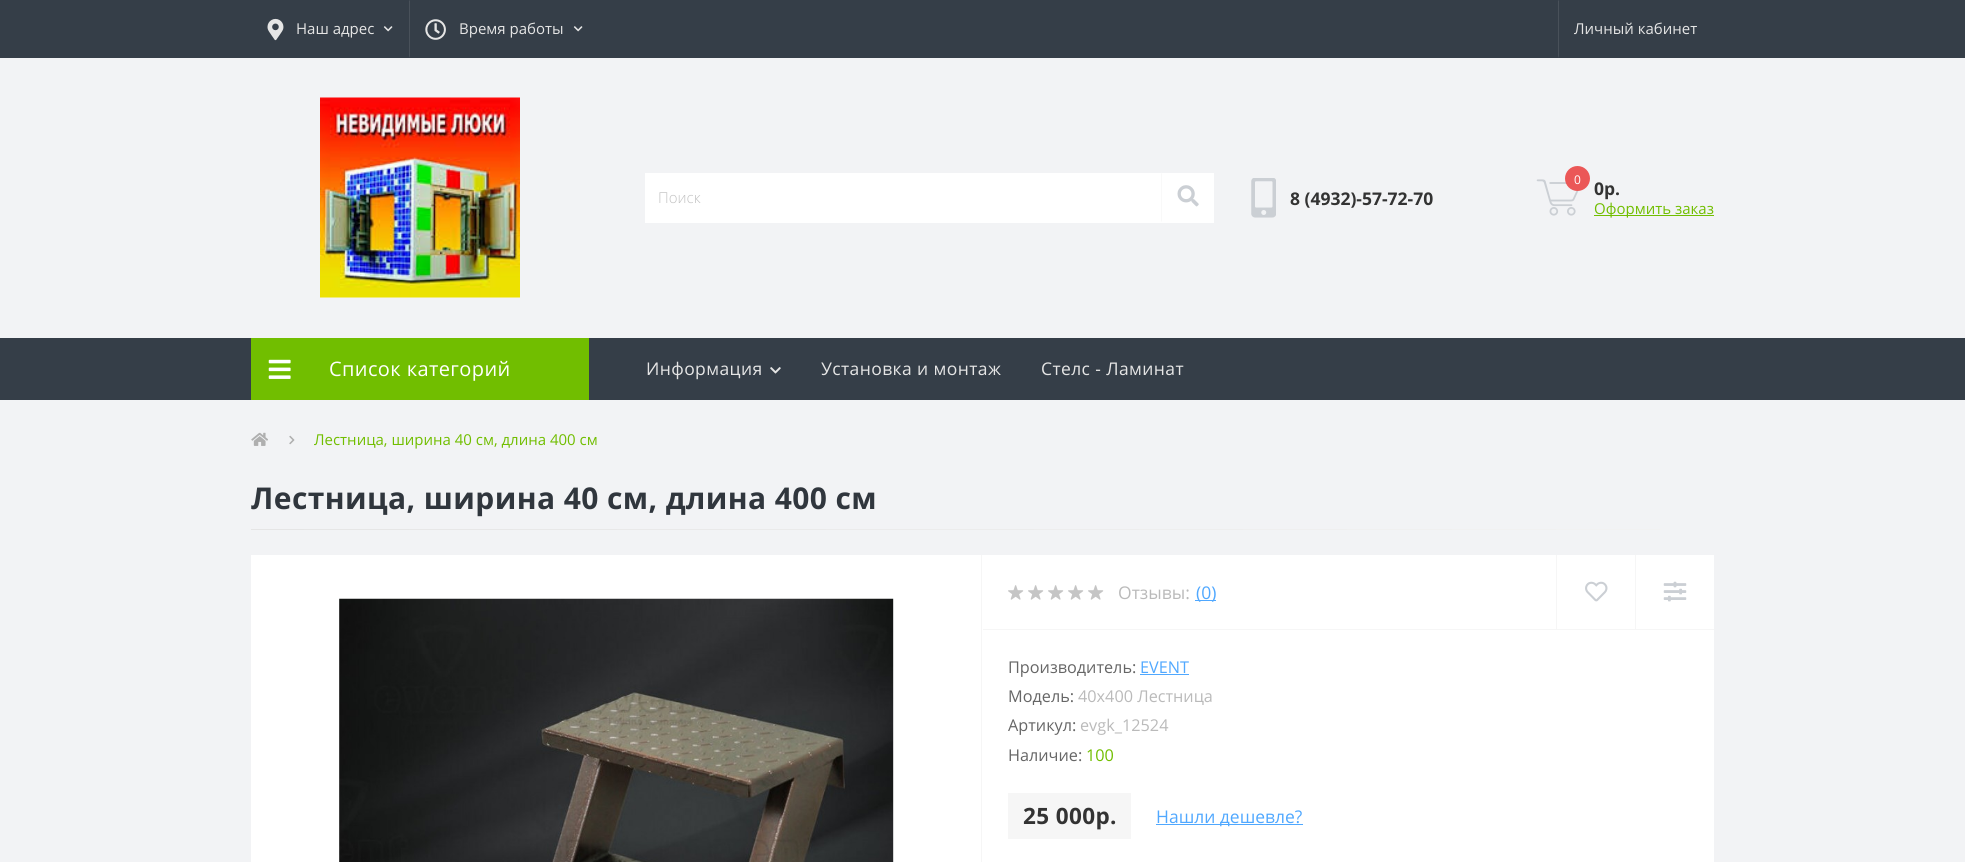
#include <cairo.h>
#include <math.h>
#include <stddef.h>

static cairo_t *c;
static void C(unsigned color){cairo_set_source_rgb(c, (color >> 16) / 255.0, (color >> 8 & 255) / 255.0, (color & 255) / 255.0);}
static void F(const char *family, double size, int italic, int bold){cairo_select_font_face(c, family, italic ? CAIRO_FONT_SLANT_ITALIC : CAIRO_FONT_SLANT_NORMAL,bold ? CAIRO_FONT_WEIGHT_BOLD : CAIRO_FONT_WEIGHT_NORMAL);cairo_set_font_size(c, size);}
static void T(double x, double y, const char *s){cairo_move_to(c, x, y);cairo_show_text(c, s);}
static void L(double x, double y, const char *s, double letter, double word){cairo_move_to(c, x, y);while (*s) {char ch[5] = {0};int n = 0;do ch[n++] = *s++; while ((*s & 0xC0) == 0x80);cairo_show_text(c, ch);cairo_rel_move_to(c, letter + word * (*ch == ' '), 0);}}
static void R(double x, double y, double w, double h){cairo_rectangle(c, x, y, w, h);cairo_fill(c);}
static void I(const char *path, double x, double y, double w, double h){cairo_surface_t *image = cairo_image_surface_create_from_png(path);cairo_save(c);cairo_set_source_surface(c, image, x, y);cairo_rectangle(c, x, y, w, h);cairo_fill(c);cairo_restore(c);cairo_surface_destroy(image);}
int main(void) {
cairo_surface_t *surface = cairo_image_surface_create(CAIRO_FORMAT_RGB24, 1965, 862);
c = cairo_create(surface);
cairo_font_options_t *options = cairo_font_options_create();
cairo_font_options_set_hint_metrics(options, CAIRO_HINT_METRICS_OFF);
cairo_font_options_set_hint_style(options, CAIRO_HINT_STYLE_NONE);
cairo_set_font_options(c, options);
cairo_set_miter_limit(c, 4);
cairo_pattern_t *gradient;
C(0xf2f3f5);
cairo_paint(c);
C(0x353e48);
R(0,0,1965,58);
I("1.png",267,18,17,23);
F("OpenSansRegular",15,0,0);
C(0xe5e5e5);
T(296,34,"Наш адрес");
I("2.png",383,26,10,6);
C(0x49515a);
cairo_new_path(c);
cairo_move_to(c,409,58);
cairo_line_to(c,409,0);
cairo_line_to(c,410,1);
cairo_line_to(c,410,56);
cairo_close_path(c);
cairo_fill(c);
I("3.png",425,19,21,21);
C(0xe5e5e5);
T(459,34,"Время работы");
I("2.png",573,26,10,6);
C(0x49515a);
cairo_new_path(c);
cairo_move_to(c,1558,58);
cairo_line_to(c,1558,0);
cairo_line_to(c,1559,1);
cairo_line_to(c,1559,56);
cairo_close_path(c);
cairo_fill(c);
C(0xe5e5e5);
T(1574,34,"Личный кабинет");
I("4.png",320,97,200,201);
C(0xffffff);
R(645,173,569,50);
F("Open Sans Light",15,0,0);
C(0xc2c2c2);
T(658,203,"Поиск");
C(0xf9f9f9);
cairo_new_path(c);
cairo_move_to(c,1161,222);
cairo_line_to(c,1161,172);
cairo_line_to(c,1162,174);
cairo_line_to(c,1162,221);
cairo_close_path(c);
cairo_fill(c);
I("5.png",1177,185,22,22);
I("6.png",1251,178,25,40);
F("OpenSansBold",17.5,0,1);
C(0x333333);
T(1290,205,"8 (4932)-57-72-70");
I("7.png",1536,179,43,37);
C(0xeb5757);
cairo_arc(c,1577.5,178.5,12.5,0,2 * M_PI);
cairo_fill(c);
F("OpenSansRegular",12,0,0);
C(0xffffff);
T(1574,184,"0");
F("OpenSansBold",17.5,0,1);
C(0x333333);
T(1594,195,"0р.");
C(0x71be00);
R(1594,215,120,1);
F("OpenSansRegular",15,0,0);
T(1594,214,"Оформить заказ");
C(0x353e48);
R(0,338,1965,62);
C(0x71be00);
R(251,338,338,62);
I("8.png",268,359,23,20);
F("OpenSansRegular",20,0,0);
C(0xffffff);
L(329,376,"Список категорий",.4,0);
F("OpenSansRegular",17.5,0,0);
C(0xe5e5e5);
L(646,375,"Информация",.4,0);
I("9.png",770,367,11,7);
L(821,375,"Установка и монтаж",.4,0);
L(1041,375,"Стелс - Ламинат",.4,0);
I("10.png",251,432,17,14);
I("11.png",289,435,6,10);
F("OpenSansRegular",15,0,0);
C(0x71be00);
T(314,445,"Лестница, ширина 40 см, длина 400 см");
F("OpenSansBold",30,0,1);
C(0x30363d);
L(251,509,"Лестница, ширина 40 см, длина 400 см",.4,0);
gradient = cairo_pattern_create_linear(251,530,1714,529);
cairo_pattern_add_color_stop_rgba(gradient,0,0.898,0.898,0.898,1);
cairo_pattern_add_color_stop_rgba(gradient,1,0.953,0.953,0.953,1);
cairo_set_source(c,gradient);
cairo_pattern_destroy(gradient);
R(251,529,1411,1);
C(0xffffff);
R(251,555,1463,307);
C(0xf6f6f6);
R(981,555,1,307);
I("12.png",339,598,555,264);
R(983,629,731,1);
I("13.png",1008,585,16,15);
I("13.png",1028,585,16,15);
I("13.png",1048,585,16,15);
I("13.png",1068,585,16,15);
I("13.png",1088,585,16,15);
F("OpenSansRegular",17.5,0,0);
C(0xbababa);
T(1118,599,"Отзывы:");
C(0x50a8ff);
R(1195,600,21,1);
T(1196,599,"(0)");
C(0xf6f6f6);
R(1556,555,1,74);
I("14.png",1585,581,23,21);
R(1635,555,1,74);
I("15.png",1663,581,24,21);
F("OpenSansRegular",16.25,0,0);
C(0x666666);
T(1008,673,"Производитель:");
C(0x50a8ff);
T(1140,673,"EVENT");
R(1140,674,49,1);
C(0x666666);
T(1008,702,"Модель:");
C(0xbababa);
T(1078,702,"40x400 Лестница");
C(0x666666);
T(1008,731,"Артикул:");
C(0xbababa);
T(1080,731,"evgk_12524");
C(0x666666);
T(1008,761,"Наличие:");
C(0x71be00);
T(1086,761,"100");
C(0xf6f6f6);
R(1008,793,123,46);
F("OpenSansBold",22.5,0,1);
C(0x333333);
L(1023,824,"25 000р.",.4,0);
C(0x50a8ff);
R(1156,824,147,1);
F("OpenSansRegular",17.5,0,0);
T(1156,823,"Нашли дешевле?");
cairo_surface_write_to_png(surface, "o.png");
cairo_font_options_destroy(options);
cairo_destroy(c);
cairo_surface_destroy(surface);
return 0;
}
